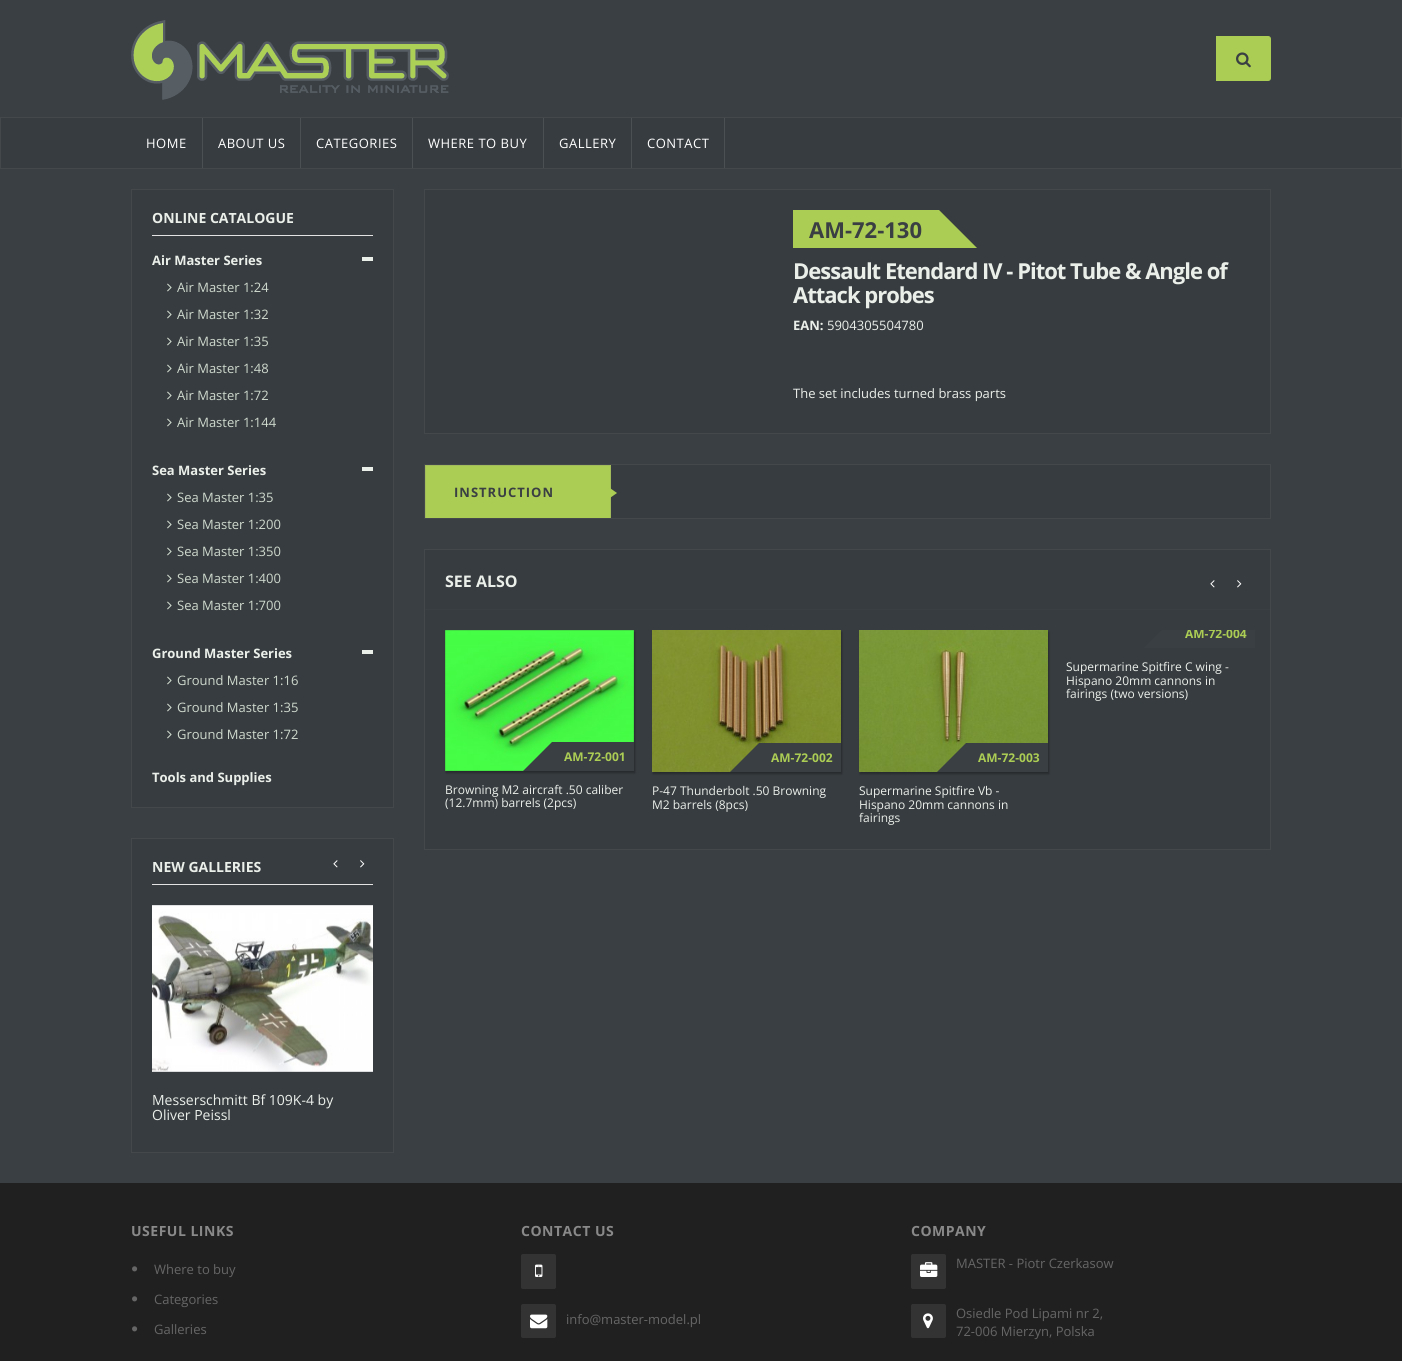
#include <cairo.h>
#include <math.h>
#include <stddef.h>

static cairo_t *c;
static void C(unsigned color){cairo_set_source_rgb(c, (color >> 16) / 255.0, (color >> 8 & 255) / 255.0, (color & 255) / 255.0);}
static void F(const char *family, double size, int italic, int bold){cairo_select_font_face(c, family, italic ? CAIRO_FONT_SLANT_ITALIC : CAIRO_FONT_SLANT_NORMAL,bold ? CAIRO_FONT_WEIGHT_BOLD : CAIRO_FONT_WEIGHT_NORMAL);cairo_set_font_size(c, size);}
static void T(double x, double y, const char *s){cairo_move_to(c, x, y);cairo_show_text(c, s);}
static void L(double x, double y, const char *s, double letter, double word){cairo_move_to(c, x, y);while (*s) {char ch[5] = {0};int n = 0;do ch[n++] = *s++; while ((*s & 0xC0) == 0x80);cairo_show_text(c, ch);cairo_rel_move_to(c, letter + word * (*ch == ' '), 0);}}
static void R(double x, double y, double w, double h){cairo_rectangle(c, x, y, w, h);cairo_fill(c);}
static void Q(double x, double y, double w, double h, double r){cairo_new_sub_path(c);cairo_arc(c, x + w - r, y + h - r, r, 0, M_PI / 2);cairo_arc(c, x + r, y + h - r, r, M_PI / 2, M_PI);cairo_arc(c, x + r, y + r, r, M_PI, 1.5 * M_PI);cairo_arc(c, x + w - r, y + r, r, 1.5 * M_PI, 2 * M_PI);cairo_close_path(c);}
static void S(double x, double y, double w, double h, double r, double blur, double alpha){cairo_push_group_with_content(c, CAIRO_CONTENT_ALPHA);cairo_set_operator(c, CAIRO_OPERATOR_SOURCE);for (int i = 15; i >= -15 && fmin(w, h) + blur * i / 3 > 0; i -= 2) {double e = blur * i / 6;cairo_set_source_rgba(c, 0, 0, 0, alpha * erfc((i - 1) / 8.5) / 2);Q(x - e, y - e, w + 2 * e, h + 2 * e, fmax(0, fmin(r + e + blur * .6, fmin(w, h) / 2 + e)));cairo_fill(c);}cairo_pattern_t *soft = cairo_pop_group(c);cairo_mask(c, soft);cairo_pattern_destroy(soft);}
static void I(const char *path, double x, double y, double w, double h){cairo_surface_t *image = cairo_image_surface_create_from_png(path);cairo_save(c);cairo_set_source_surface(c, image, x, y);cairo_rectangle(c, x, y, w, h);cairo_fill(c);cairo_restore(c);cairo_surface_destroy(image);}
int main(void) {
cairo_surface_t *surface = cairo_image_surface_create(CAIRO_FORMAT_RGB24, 1402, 1361);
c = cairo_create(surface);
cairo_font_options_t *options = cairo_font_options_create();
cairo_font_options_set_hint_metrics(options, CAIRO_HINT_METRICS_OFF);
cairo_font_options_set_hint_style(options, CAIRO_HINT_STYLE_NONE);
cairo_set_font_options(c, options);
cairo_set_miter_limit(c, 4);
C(0x3a3f43);
cairo_paint(c);
I("1.png",131,20,318,80);
C(0xaccd54);
cairo_new_path(c);
cairo_move_to(c,1216.5,36.5);
cairo_line_to(c,1268,36.5);
cairo_curve_to(c,1269.5,36.5,1270.5,37.5,1270.5,39);
cairo_line_to(c,1270.5,78);
cairo_curve_to(c,1270.5,79.5,1269.5,80.5,1268,80.5);
cairo_line_to(c,1216.5,80.5);
cairo_close_path(c);
cairo_fill_preserve(c);
cairo_set_line_width(c,1);
cairo_stroke(c);
I("2.png",1236,52,15,16);
C(0x373c40);
cairo_rectangle(c,.5,117.5,1401,51);
cairo_fill_preserve(c);
C(0x44484b);
cairo_stroke(c);
C(0x4b5053);
R(202,118,1,50);
F("Open Sans",13,0,0);
C(0xffffff);
L(146,148,"HOME",.5,0);
C(0x4b5053);
R(300,118,1,50);
C(0xffffff);
L(218,148,"ABOUT US",.5,0);
C(0x4b5053);
R(412,118,1,50);
C(0xffffff);
L(316,148,"CATEGORIES",.5,0);
C(0x4b5053);
R(543,118,1,50);
C(0xffffff);
L(428,148,"WHERE TO BUY",.5,0);
C(0x4b5053);
R(631,118,1,50);
C(0xffffff);
L(559,148,"GALLERY",.5,0);
C(0x4b5053);
R(724,118,1,50);
C(0xffffff);
L(647,148,"CONTACT",.5,0);
C(0x373c40);
cairo_rectangle(c,131.5,189.5,262,618);
cairo_fill_preserve(c);
C(0x44484b);
cairo_stroke(c);
C(0xe3e3e3);
R(152,235,221,1);
F("Open Sans",14,0,1);
C(0xebefea);
T(152,223,"ONLINE CATALOGUE");
F("Open Sans",13,0,1);
T(152,265,"Air Master Series");
R(362,257,11,4);
I("3.png",167,283,5,9);
F("Open Sans",13,0,0);
C(0xcfd9cd);
T(177,292,"Air Master 1:24");
I("3.png",167,310,5,9);
T(177,319,"Air Master 1:32");
I("3.png",167,337,5,9);
T(177,346,"Air Master 1:35");
I("3.png",167,364,5,9);
T(177,373,"Air Master 1:48");
I("3.png",167,391,5,9);
T(177,400,"Air Master 1:72");
I("3.png",167,418,5,9);
T(177,427,"Air Master 1:144");
F("Open Sans",13,0,1);
C(0xebefea);
T(152,475,"Sea Master Series");
R(362,467,11,4);
I("3.png",167,493,5,9);
F("Open Sans",13,0,0);
C(0xcfd9cd);
T(177,502,"Sea Master 1:35");
I("3.png",167,520,5,9);
T(177,529,"Sea Master 1:200");
I("3.png",167,547,5,9);
T(177,556,"Sea Master 1:350");
I("3.png",167,574,5,9);
T(177,583,"Sea Master 1:400");
I("3.png",167,601,5,9);
T(177,610,"Sea Master 1:700");
F("Open Sans",13,0,1);
C(0xebefea);
T(152,658,"Ground Master Series");
R(362,650,11,4);
I("3.png",167,676,5,9);
F("Open Sans",13,0,0);
C(0xcfd9cd);
T(177,685,"Ground Master 1:16");
I("3.png",167,703,5,9);
T(177,712,"Ground Master 1:35");
I("3.png",167,730,5,9);
T(177,739,"Ground Master 1:72");
F("Open Sans",13,0,1);
C(0xebefea);
T(152,782,"Tools and Supplies");
C(0x373c40);
cairo_rectangle(c,131.5,838.5,262,314);
cairo_fill_preserve(c);
C(0x44484b);
cairo_stroke(c);
C(0xe3e3e3);
R(152,884,221,1);
F("Open Sans",14,0,1);
C(0xebefea);
T(152,872,"NEW GALLERIES");
I("4.png",333,860,5,8);
I("5.png",360,860,5,8);
I("6.png",152,905,221,167);
F("Open Sans",14,0,0);
T(152,1105,"Messerschmitt Bf 109K-4 by");
T(152,1120,"Oliver Peissl");
C(0x373c40);
cairo_rectangle(c,424.5,189.5,846,244);
cairo_fill_preserve(c);
C(0x44484b);
cairo_stroke(c);
C(0xaccd54);
R(793,210,134,38);
cairo_new_path(c);
cairo_move_to(c,889,210);
cairo_line_to(c,939,210);
cairo_line_to(c,977,248);
cairo_line_to(c,927,248);
cairo_close_path(c);
cairo_fill(c);
F("Open Sans",22,0,1);
C(0x3a3f43);
T(809,238,"AM-72-130");
C(0xebefea);
L(793,279,"Dessault Etendard IV - Pitot Tube & Angle of",-1,0);
L(793,303,"Attack probes",-1,0);
F("Open Sans",13,0,1);
T(793,330,"EAN:");
F("Open Sans",13,0,0);
T(827,330,"5904305504780");
T(793,398,"The set includes turned brass parts");
C(0x373c40);
R(611,465,659,53);
cairo_rectangle(c,424.5,464.5,846,54);
C(0x44484b);
cairo_stroke(c);
C(0xaccd54);
R(426,466,184,52);
cairo_save(c);
cairo_rectangle(c,425,465,845,53);
cairo_clip(c);
cairo_rectangle(c,425.5,465.5,185,53);
C(0xa2bc5b);
cairo_stroke(c);
cairo_restore(c);
F("Open Sans",13,0,1);
C(0x3a3f43);
L(454,497,"INSTRUCTION",1,0);
C(0xaccd54);
cairo_new_path(c);
cairo_move_to(c,607,500);
cairo_line_to(c,607,486);
cairo_line_to(c,617,493);
cairo_close_path(c);
cairo_fill(c);
C(0x373c40);
cairo_rectangle(c,424.5,549.5,846,300);
cairo_fill_preserve(c);
C(0x44484b);
cairo_stroke(c);
C(0x3a3f43);
R(425,609,845,1);
F("Open Sans",16,0,1);
C(0xebefea);
T(445,587,"SEE ALSO");
I("4.png",1210,580,5,8);
I("5.png",1237,580,5,8);
C(0x3a3f43);
R(1194,630,61,18);
cairo_save(c);
cairo_rectangle(c,445,630,825,219);
cairo_clip(c);
cairo_new_path(c);
cairo_move_to(c,1173,619);
cairo_line_to(c,1223,619);
cairo_line_to(c,1194,648);
cairo_line_to(c,1144,648);
cairo_close_path(c);
cairo_fill(c);
F("Open Sans",12,0,1);
C(0xaccd54);
T(1185,638,"AM-72-004");
cairo_restore(c);
F("Open Sans",12,0,0);
C(0xebefea);
T(1066,671,"Supermarine Spitfire C wing -");
T(1066,685,"Hispano 20mm cannons in");
T(1066,698,"fairings (two versions)");
C(0x000000);
S(446,632,189,141,0,1,.3);
I("7.png",445,630,189,141);
C(0x3a3f43);
R(573,742,61,29);
cairo_new_path(c);
cairo_move_to(c,552,742);
cairo_line_to(c,602,742);
cairo_line_to(c,573,771);
cairo_line_to(c,523,771);
cairo_close_path(c);
cairo_fill(c);
F("Open Sans",12,0,1);
C(0xaccd54);
T(564,761,"AM-72-001");
F("Open Sans",12,0,0);
C(0xebefea);
T(445,794,"Browning M2 aircraft .50 caliber");
T(445,807,"(12.7mm) barrels (2pcs)");
C(0x000000);
S(653,632,189,142,0,1,.3);
I("8.png",652,630,189,142);
C(0x3a3f43);
R(780,743,61,29);
cairo_new_path(c);
cairo_move_to(c,759,743);
cairo_line_to(c,809,743);
cairo_line_to(c,780,772);
cairo_line_to(c,730,772);
cairo_close_path(c);
cairo_fill(c);
F("Open Sans",12,0,1);
C(0xaccd54);
T(771,762,"AM-72-002");
F("Open Sans",12,0,0);
C(0xebefea);
T(652,795,"P-47 Thunderbolt .50 Browning");
T(652,809,"M2 barrels (8pcs)");
C(0x000000);
S(860,632,189,142,0,1,.3);
I("9.png",859,630,189,142);
C(0x3a3f43);
R(987,743,61,29);
cairo_new_path(c);
cairo_move_to(c,966,743);
cairo_line_to(c,1016,743);
cairo_line_to(c,987,772);
cairo_line_to(c,937,772);
cairo_close_path(c);
cairo_fill(c);
F("Open Sans",12,0,1);
C(0xaccd54);
T(978,762,"AM-72-003");
F("Open Sans",12,0,0);
C(0xebefea);
T(859,795,"Supermarine Spitfire Vb -");
T(859,809,"Hispano 20mm cannons in");
T(859,822,"fairings");
C(0x202020);
R(0,1183,1402,178);
F("Open Sans",14,0,1);
C(0x898989);
L(131,1236,"USEFUL LINKS",.5,0);
I("10.png",132,1266,6,6);
F("Open Sans",13,0,0);
C(0x666666);
T(154,1274,"Where to buy");
I("10.png",132,1296,6,6);
T(154,1304,"Categories");
I("10.png",132,1326,6,6);
T(154,1334,"Galleries");
F("Open Sans",14,0,1);
C(0x898989);
L(521,1236,"CONTACT US",.5,0);
C(0x333333);
Q(521,1254,35,35,2);
cairo_fill(c);
I("11.png",535,1264,8,13);
Q(521,1304,35,34,2);
cairo_fill(c);
I("12.png",530,1314,18,15);
F("Open Sans",13,0,0);
C(0x666666);
T(566,1324,"info@master-model.pl");
F("Open Sans",14,0,1);
C(0x898989);
L(911,1236,"COMPANY",.5,0);
C(0x333333);
Q(911,1254,35,35,2);
cairo_fill(c);
I("13.png",920,1262,18,15);
F("Open Sans",13,0,0);
C(0x666666);
T(956,1268,"MASTER - Piotr Czerkasow");
C(0x333333);
Q(911,1304,35,34,2);
cairo_fill(c);
I("14.png",923,1313,10,16);
C(0x666666);
T(956,1318,"Osiedle Pod Lipami nr 2,");
T(956,1336,"72-006 Mierzyn, Polska");
cairo_surface_write_to_png(surface, "o.png");
cairo_font_options_destroy(options);
cairo_destroy(c);
cairo_surface_destroy(surface);
return 0;
}
